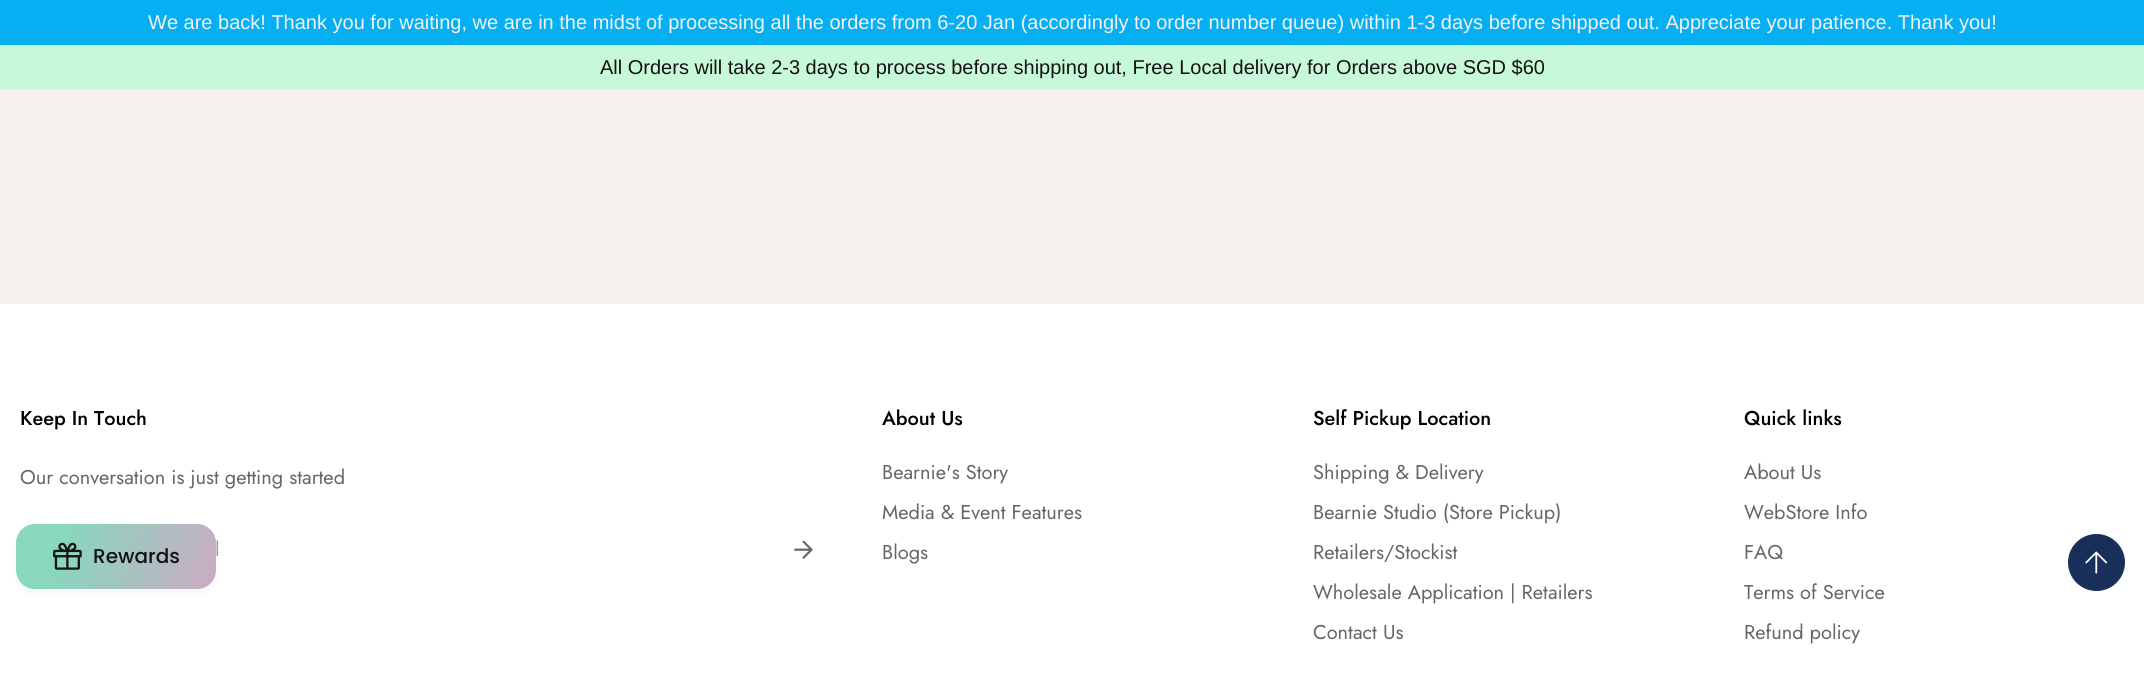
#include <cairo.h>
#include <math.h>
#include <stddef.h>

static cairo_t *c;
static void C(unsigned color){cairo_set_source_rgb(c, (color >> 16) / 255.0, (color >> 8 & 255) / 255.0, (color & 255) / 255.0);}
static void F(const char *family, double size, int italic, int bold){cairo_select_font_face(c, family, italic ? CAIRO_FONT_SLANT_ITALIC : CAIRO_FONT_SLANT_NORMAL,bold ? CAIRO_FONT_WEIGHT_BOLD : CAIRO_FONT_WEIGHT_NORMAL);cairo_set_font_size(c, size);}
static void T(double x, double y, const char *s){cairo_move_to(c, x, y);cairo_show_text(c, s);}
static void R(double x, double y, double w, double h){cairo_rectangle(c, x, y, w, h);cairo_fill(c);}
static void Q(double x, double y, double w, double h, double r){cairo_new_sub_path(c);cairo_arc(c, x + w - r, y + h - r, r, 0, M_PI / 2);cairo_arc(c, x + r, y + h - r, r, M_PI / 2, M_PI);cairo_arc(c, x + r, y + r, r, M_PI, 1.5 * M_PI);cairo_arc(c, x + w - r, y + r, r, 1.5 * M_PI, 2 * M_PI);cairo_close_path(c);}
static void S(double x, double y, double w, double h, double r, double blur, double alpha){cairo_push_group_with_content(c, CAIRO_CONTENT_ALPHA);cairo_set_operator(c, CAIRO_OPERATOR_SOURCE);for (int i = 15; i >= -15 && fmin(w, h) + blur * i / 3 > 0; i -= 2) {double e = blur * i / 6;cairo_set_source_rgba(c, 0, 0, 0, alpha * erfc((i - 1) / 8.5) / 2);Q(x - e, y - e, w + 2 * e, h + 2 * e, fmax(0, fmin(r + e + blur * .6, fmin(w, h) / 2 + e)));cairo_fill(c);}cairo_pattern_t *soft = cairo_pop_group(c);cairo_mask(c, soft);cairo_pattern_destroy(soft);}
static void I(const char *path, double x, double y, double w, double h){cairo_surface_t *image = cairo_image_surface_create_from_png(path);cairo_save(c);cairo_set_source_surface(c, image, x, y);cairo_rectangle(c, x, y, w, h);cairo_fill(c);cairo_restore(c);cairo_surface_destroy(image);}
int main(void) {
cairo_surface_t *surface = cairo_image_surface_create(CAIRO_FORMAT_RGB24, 2144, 698);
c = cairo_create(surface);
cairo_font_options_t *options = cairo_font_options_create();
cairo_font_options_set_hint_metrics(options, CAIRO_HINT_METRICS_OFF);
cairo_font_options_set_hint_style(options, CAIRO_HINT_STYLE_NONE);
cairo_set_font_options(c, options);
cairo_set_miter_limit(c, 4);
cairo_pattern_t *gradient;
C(0xffffff);
cairo_paint(c);
C(0x05aff2);
R(0,0,2144,45);
F("Liberation Sans",20,0,0);
C(0xf2f2f2);
T(148,29,"We are back! Thank you for waiting, we are in the midst of processing all the orders from 6-20 Jan (accordingly to order number queue) within 1-3 days before shipped out. Appreciate your patience. Thank you!");
C(0xc7f9d8);
R(0,45,2144,45);
C(0x151212);
T(600,74,"All Orders will take 2-3 days to process before shipping out, Free Local delivery for Orders above SGD $60");
C(0xf5f1ed);
R(0,90,2144,214);
C(0x183059);
cairo_new_path(c);
cairo_arc(c,2096.5,562.5,28,0,2 * M_PI);
cairo_fill_preserve(c);
cairo_set_line_width(c,1);
cairo_stroke(c);
I("1.png",2085,551,23,23);
F("Jost Medium",20,0,0);
C(0x000000);
T(20,425,"Keep In Touch");
F("Jost",20,0,0);
C(0x666666);
T(20,484,"Our conversation is just getting started");
C(0x9ca3af);
T(215,556,"l");
I("2.png",794,540,19,19);
F("Jost Medium",20,0,0);
C(0x000000);
T(882,425,"About Us");
F("Jost",20,0,0);
C(0x666666);
T(882,479,"Bearnie's Story");
T(882,519,"Media & Event Features");
T(882,559,"Blogs");
F("Jost Medium",20,0,0);
C(0x000000);
T(1313,425,"Self Pickup Location");
F("Jost",20,0,0);
C(0x666666);
T(1313,479,"Shipping & Delivery");
T(1313,519,"Bearnie Studio (Store Pickup)");
T(1313,559,"Retailers/Stockist");
T(1313,599,"Wholesale Application | Retailers");
T(1313,639,"Contact Us");
F("Jost Medium",20,0,0);
C(0x000000);
T(1744,425,"Quick links");
F("Jost",20,0,0);
C(0x666666);
T(1744,479,"About Us");
T(1744,519,"WebStore Info");
T(1744,559,"FAQ");
T(1744,599,"Terms of Service");
T(1744,639,"Refund policy");
C(0x444444);
S(19,531,195,60,16,5,.08);
gradient = cairo_pattern_create_linear(17,521,295,620);
cairo_pattern_add_color_stop_rgba(gradient,.17,0.533,0.843,0.745,1);
cairo_pattern_add_color_stop_rgba(gradient,1,0.937,0.576,0.78,1);
cairo_set_source(c,gradient);
cairo_pattern_destroy(gradient);
Q(16,524,200,65,19);
cairo_fill(c);
I("3.png",53,542,29,28);
F("Poppins Medium",20,0,0);
C(0x151212);
T(93,563,"Rewards");
cairo_surface_write_to_png(surface, "o.png");
cairo_font_options_destroy(options);
cairo_destroy(c);
cairo_surface_destroy(surface);
return 0;
}
